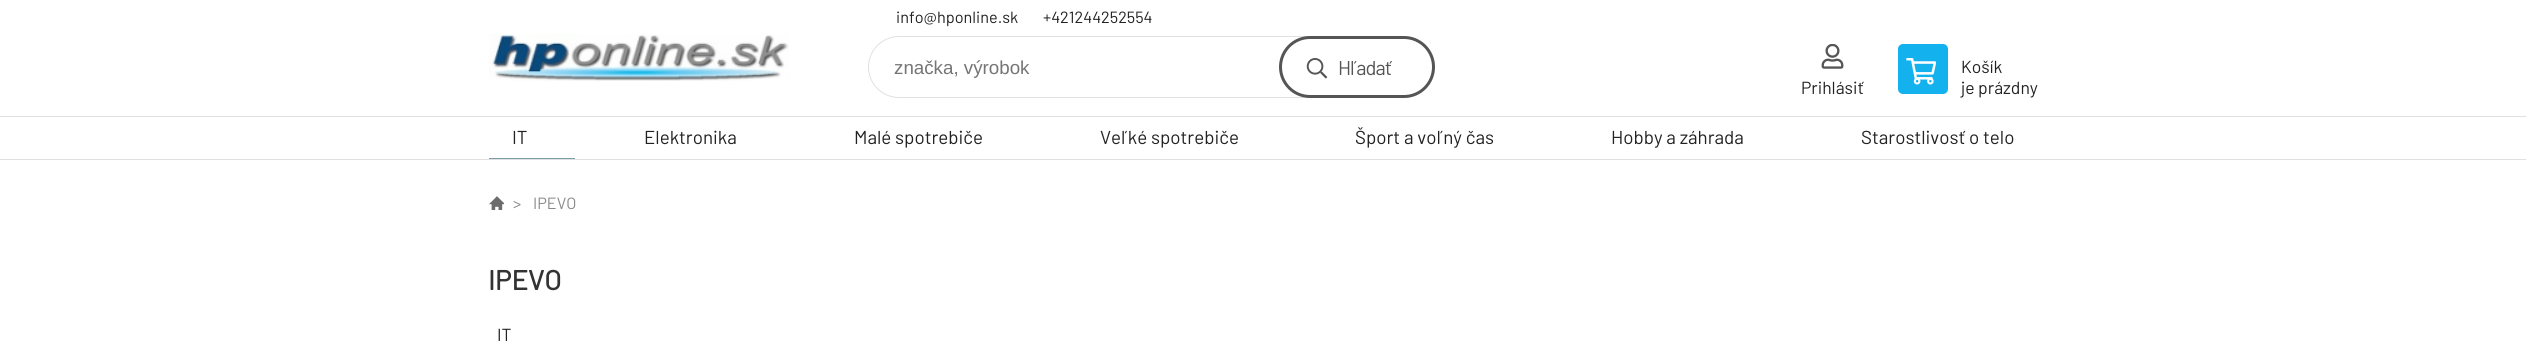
#include <cairo.h>
#include <math.h>
#include <stddef.h>

static cairo_t *c;
static void C(unsigned color){cairo_set_source_rgb(c, (color >> 16) / 255.0, (color >> 8 & 255) / 255.0, (color & 255) / 255.0);}
static void F(const char *family, double size, int italic, int bold){cairo_select_font_face(c, family, italic ? CAIRO_FONT_SLANT_ITALIC : CAIRO_FONT_SLANT_NORMAL,bold ? CAIRO_FONT_WEIGHT_BOLD : CAIRO_FONT_WEIGHT_NORMAL);cairo_set_font_size(c, size);}
static void T(double x, double y, const char *s){cairo_move_to(c, x, y);cairo_show_text(c, s);}
static void L(double x, double y, const char *s, double letter, double word){cairo_move_to(c, x, y);while (*s) {char ch[5] = {0};int n = 0;do ch[n++] = *s++; while ((*s & 0xC0) == 0x80);cairo_show_text(c, ch);cairo_rel_move_to(c, letter + word * (*ch == ' '), 0);}}
static void R(double x, double y, double w, double h){cairo_rectangle(c, x, y, w, h);cairo_fill(c);}
static void Q(double x, double y, double w, double h, double r){cairo_new_sub_path(c);cairo_arc(c, x + w - r, y + h - r, r, 0, M_PI / 2);cairo_arc(c, x + r, y + h - r, r, M_PI / 2, M_PI);cairo_arc(c, x + r, y + r, r, M_PI, 1.5 * M_PI);cairo_arc(c, x + w - r, y + r, r, 1.5 * M_PI, 2 * M_PI);cairo_close_path(c);}
static void I(const char *path, double x, double y, double w, double h){cairo_surface_t *image = cairo_image_surface_create_from_png(path);cairo_save(c);cairo_set_source_surface(c, image, x, y);cairo_rectangle(c, x, y, w, h);cairo_fill(c);cairo_restore(c);cairo_surface_destroy(image);}
int main(void) {
cairo_surface_t *surface = cairo_image_surface_create(CAIRO_FORMAT_RGB24, 2526, 348);
c = cairo_create(surface);
cairo_font_options_t *options = cairo_font_options_create();
cairo_font_options_set_hint_metrics(options, CAIRO_HINT_METRICS_OFF);
cairo_font_options_set_hint_style(options, CAIRO_HINT_STYLE_NONE);
cairo_set_font_options(c, options);
cairo_set_miter_limit(c, 4);
C(0xffffff);
cairo_paint(c);
F("Barlow",16.25,0,0);
C(0x222222);
T(896,23,"info@hponline.sk");
T(1043,23,"+421244252554");
I("1.png",489,34,300,47);
Q(868.5,36.5,566,61,30.5);
C(0xe0e0e0);
cairo_set_line_width(c,1);
cairo_stroke(c);
F("Liberation Sans",18.75,0,0);
C(0x757575);
T(894,74,"značka, výrobok");
I("2.png",1306,58,22,21);
Q(1280.5,37.5,153,59,29.5);
C(0x555555);
cairo_set_line_width(c,3);
cairo_stroke(c);
F("Barlow",20,0,0);
L(1338,75,"Hľadať",-1,0);
I("3.png",1821,44,23,25);
F("Barlow",17.5,0,0);
C(0x222222);
T(1801,94,"Prihlásiť");
C(0x14b1ef);
Q(1898,44,50,50,5);
cairo_fill(c);
I("4.png",1906,58,30,27);
C(0x222222);
T(1961,73,"Košík");
T(1961,94,"je prázdny");
C(0xe0e0e0);
R(0,116,2526,1);
R(0,159,2526,1);
F("Barlow",18.75,0,0);
C(0x222222);
T(512,144,"IT");
C(0x799ea7);
R(489,158,86,1);
C(0x222222);
T(644,144,"Elektronika");
T(854,144,"Malé spotrebiče");
T(1100,144,"Veľké spotrebiče");
T(1355,144,"Šport a voľný čas");
T(1611,144,"Hobby a záhrada");
T(1861,144,"Starostlivosť o telo");
I("5.png",489,196,15,14);
F("Barlow",16.25,0,0);
C(0x888888);
T(513,209,">");
T(533,209,"IPEVO");
F("Barlow",27.5,0,1);
C(0x333333);
T(488,290,"IPEVO");
F("Barlow",17.5,0,0);
C(0x222222);
T(497,341,"IT");
cairo_surface_write_to_png(surface, "o.png");
cairo_font_options_destroy(options);
cairo_destroy(c);
cairo_surface_destroy(surface);
return 0;
}
